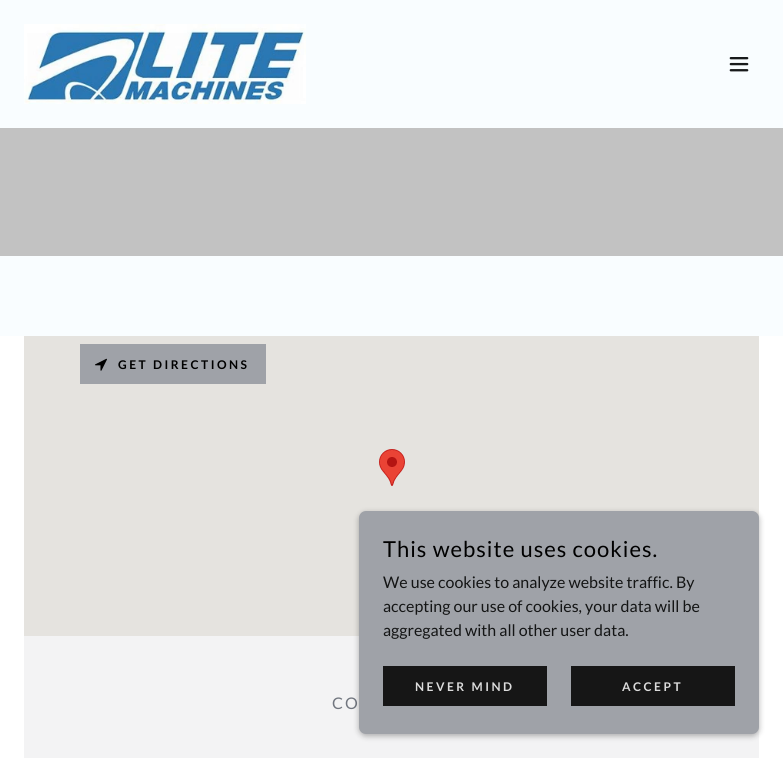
#include <cairo.h>
#include <math.h>
#include <stddef.h>

static cairo_t *c;
static void C(unsigned color){cairo_set_source_rgb(c, (color >> 16) / 255.0, (color >> 8 & 255) / 255.0, (color & 255) / 255.0);}
static void F(const char *family, double size, int italic, int bold){cairo_select_font_face(c, family, italic ? CAIRO_FONT_SLANT_ITALIC : CAIRO_FONT_SLANT_NORMAL,bold ? CAIRO_FONT_WEIGHT_BOLD : CAIRO_FONT_WEIGHT_NORMAL);cairo_set_font_size(c, size);}
static void T(double x, double y, const char *s){cairo_move_to(c, x, y);cairo_show_text(c, s);}
static void L(double x, double y, const char *s, double letter, double word){cairo_move_to(c, x, y);while (*s) {char ch[5] = {0};int n = 0;do ch[n++] = *s++; while ((*s & 0xC0) == 0x80);cairo_show_text(c, ch);cairo_rel_move_to(c, letter + word * (*ch == ' '), 0);}}
static void R(double x, double y, double w, double h){cairo_rectangle(c, x, y, w, h);cairo_fill(c);}
static void Q(double x, double y, double w, double h, double r){cairo_new_sub_path(c);cairo_arc(c, x + w - r, y + h - r, r, 0, M_PI / 2);cairo_arc(c, x + r, y + h - r, r, M_PI / 2, M_PI);cairo_arc(c, x + r, y + r, r, M_PI, 1.5 * M_PI);cairo_arc(c, x + w - r, y + r, r, 1.5 * M_PI, 2 * M_PI);cairo_close_path(c);}
static void S(double x, double y, double w, double h, double r, double blur, double alpha){cairo_push_group_with_content(c, CAIRO_CONTENT_ALPHA);cairo_set_operator(c, CAIRO_OPERATOR_SOURCE);for (int i = 15; i >= -15 && fmin(w, h) + blur * i / 3 > 0; i -= 2) {double e = blur * i / 6;cairo_set_source_rgba(c, 0, 0, 0, alpha * erfc((i - 1) / 8.5) / 2);Q(x - e, y - e, w + 2 * e, h + 2 * e, fmax(0, fmin(r + e + blur * .6, fmin(w, h) / 2 + e)));cairo_fill(c);}cairo_pattern_t *soft = cairo_pop_group(c);cairo_mask(c, soft);cairo_pattern_destroy(soft);}
static void I(const char *path, double x, double y, double w, double h){cairo_surface_t *image = cairo_image_surface_create_from_png(path);cairo_save(c);cairo_set_source_surface(c, image, x, y);cairo_rectangle(c, x, y, w, h);cairo_fill(c);cairo_restore(c);cairo_surface_destroy(image);}
int main(void) {
cairo_surface_t *surface = cairo_image_surface_create(CAIRO_FORMAT_RGB24, 783, 758);
c = cairo_create(surface);
cairo_font_options_t *options = cairo_font_options_create();
cairo_font_options_set_hint_metrics(options, CAIRO_HINT_METRICS_OFF);
cairo_font_options_set_hint_style(options, CAIRO_HINT_STYLE_NONE);
cairo_set_font_options(c, options);
cairo_set_miter_limit(c, 4);
C(0xffffff);
cairo_paint(c);
C(0xf9fdff);
R(0,0,783,128);
I("1.png",24,24,282,80);
I("2.png",729,57,20,15);
C(0xc2c2c2);
R(0,128,783,128);
C(0xf9fdff);
R(0,256,783,80);
C(0xe5e3df);
R(24,336,735,300);
I("3.png",379,449,26,37);
C(0x9fa2a8);
R(80,344,186,40);
I("4.png",95,358,12,13);
F("Lato",12,0,1);
C(0x000000);
L(118,369,"GET DIRECTIONS",2.5,0);
C(0xf3f3f4);
R(24,636,735,122);
F("Lato",16,0,0);
C(0x71767f);
L(332,709,"CO",2,0);
C(0x000000);
S(359,513,400,223,7,3,.3);
C(0x9fa2a8);
Q(359,511,400,223,7);
cairo_fill(c);
F("Lato",22,0,0);
C(0x000000);
L(383,557,"This website uses cookies.",1,0);
F("Lato",16,0,0);
C(0x141515);
T(383,588,"We use cookies to analyze website traffic. By");
T(383,612,"accepting our use of cookies, your data will be");
T(383,636,"aggregated with all other user data.");
C(0x161616);
R(383,666,164,40);
F("Lato",12,0,1);
C(0xdbdbdb);
L(415,691,"NEVER MIND",2.5,0);
C(0x161616);
R(571,666,164,40);
C(0xdbdbdb);
L(622,691,"ACCEPT",2.5,0);
cairo_surface_write_to_png(surface, "o.png");
cairo_font_options_destroy(options);
cairo_destroy(c);
cairo_surface_destroy(surface);
return 0;
}
